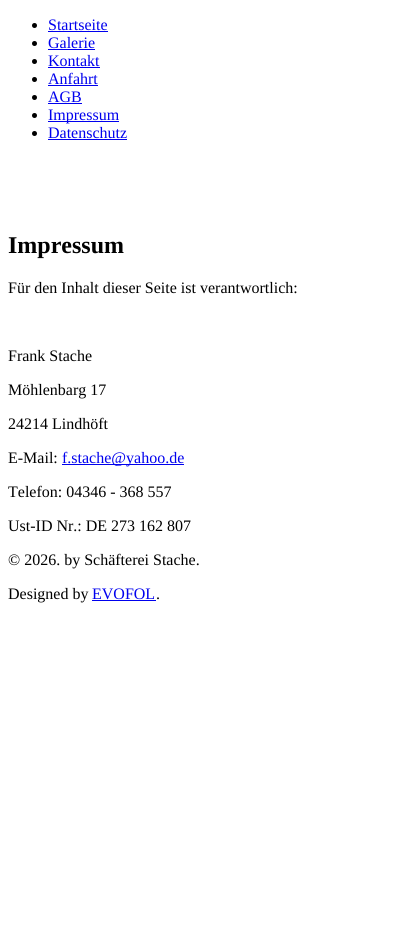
#include <cairo.h>
#include <math.h>
#include <stddef.h>

static cairo_t *c;
static void C(unsigned color){cairo_set_source_rgb(c, (color >> 16) / 255.0, (color >> 8 & 255) / 255.0, (color & 255) / 255.0);}
static void F(const char *family, double size, int italic, int bold){cairo_select_font_face(c, family, italic ? CAIRO_FONT_SLANT_ITALIC : CAIRO_FONT_SLANT_NORMAL,bold ? CAIRO_FONT_WEIGHT_BOLD : CAIRO_FONT_WEIGHT_NORMAL);cairo_set_font_size(c, size);}
static void T(double x, double y, const char *s){cairo_move_to(c, x, y);cairo_show_text(c, s);}
static void R(double x, double y, double w, double h){cairo_rectangle(c, x, y, w, h);cairo_fill(c);}
int main(void) {
cairo_surface_t *surface = cairo_image_surface_create(CAIRO_FORMAT_RGB24, 410, 934);
c = cairo_create(surface);
cairo_font_options_t *options = cairo_font_options_create();
cairo_font_options_set_hint_metrics(options, CAIRO_HINT_METRICS_OFF);
cairo_font_options_set_hint_style(options, CAIRO_HINT_STYLE_NONE);
cairo_set_font_options(c, options);
cairo_set_miter_limit(c, 4);
C(0xffffff);
cairo_paint(c);
C(0x000000);
cairo_arc(c,34.5,25.5,2.5,0,2 * M_PI);
cairo_fill(c);
F("Liberation Serif",16,0,0);
C(0x0000ee);
T(48,30,"Startseite");
R(48,31,60,1);
C(0x000000);
cairo_new_path(c);
cairo_arc(c,34.5,43.5,2.5,0,2 * M_PI);
cairo_fill(c);
C(0x0000ee);
T(48,48,"Galerie");
R(48,49,47,1);
C(0x000000);
cairo_new_path(c);
cairo_arc(c,34.5,61.5,2.5,0,2 * M_PI);
cairo_fill(c);
C(0x0000ee);
T(48,66,"Kontakt");
R(48,67,52,1);
C(0x000000);
cairo_new_path(c);
cairo_arc(c,34.5,79.5,2.5,0,2 * M_PI);
cairo_fill(c);
C(0x0000ee);
T(48,84,"Anfahrt");
R(48,85,50,1);
C(0x000000);
cairo_new_path(c);
cairo_arc(c,34.5,97.5,2.5,0,2 * M_PI);
cairo_fill(c);
C(0x0000ee);
T(48,102,"AGB");
R(48,103,34,1);
C(0x000000);
cairo_new_path(c);
cairo_arc(c,34.5,115.5,2.5,0,2 * M_PI);
cairo_fill(c);
C(0x0000ee);
R(48,121,71,1);
T(48,120,"Impressum");
C(0x000000);
cairo_new_path(c);
cairo_arc(c,34.5,133.5,2.5,0,2 * M_PI);
cairo_fill(c);
C(0x0000ee);
T(48,138,"Datenschutz");
R(48,139,79,1);
F("Liberation Serif",24,0,1);
C(0x000000);
T(8,253,"Impressum");
F("Liberation Serif",16,0,0);
T(8,293,"Für den Inhalt dieser Seite ist verantwortlich:");
T(8,361,"Frank Stache");
T(8,395,"Möhlenbarg 17");
T(8,429,"24214 Lindhöft");
T(8,463,"E-Mail:");
C(0x0000ee);
R(62,464,122,1);
T(62,463,"f.stache@yahoo.de");
C(0x000000);
T(8,497,"Telefon: 04346 - 368 557");
T(8,531,"Ust-ID Nr.: DE 273 162 807");
T(8,565,"© 2026. by Schäfterei Stache.");
T(8,599,"Designed by");
C(0x0000ee);
T(92,599,"EVOFOL");
R(92,600,64,1);
C(0x000000);
T(156,599,".");
cairo_surface_write_to_png(surface, "o.png");
cairo_font_options_destroy(options);
cairo_destroy(c);
cairo_surface_destroy(surface);
return 0;
}
